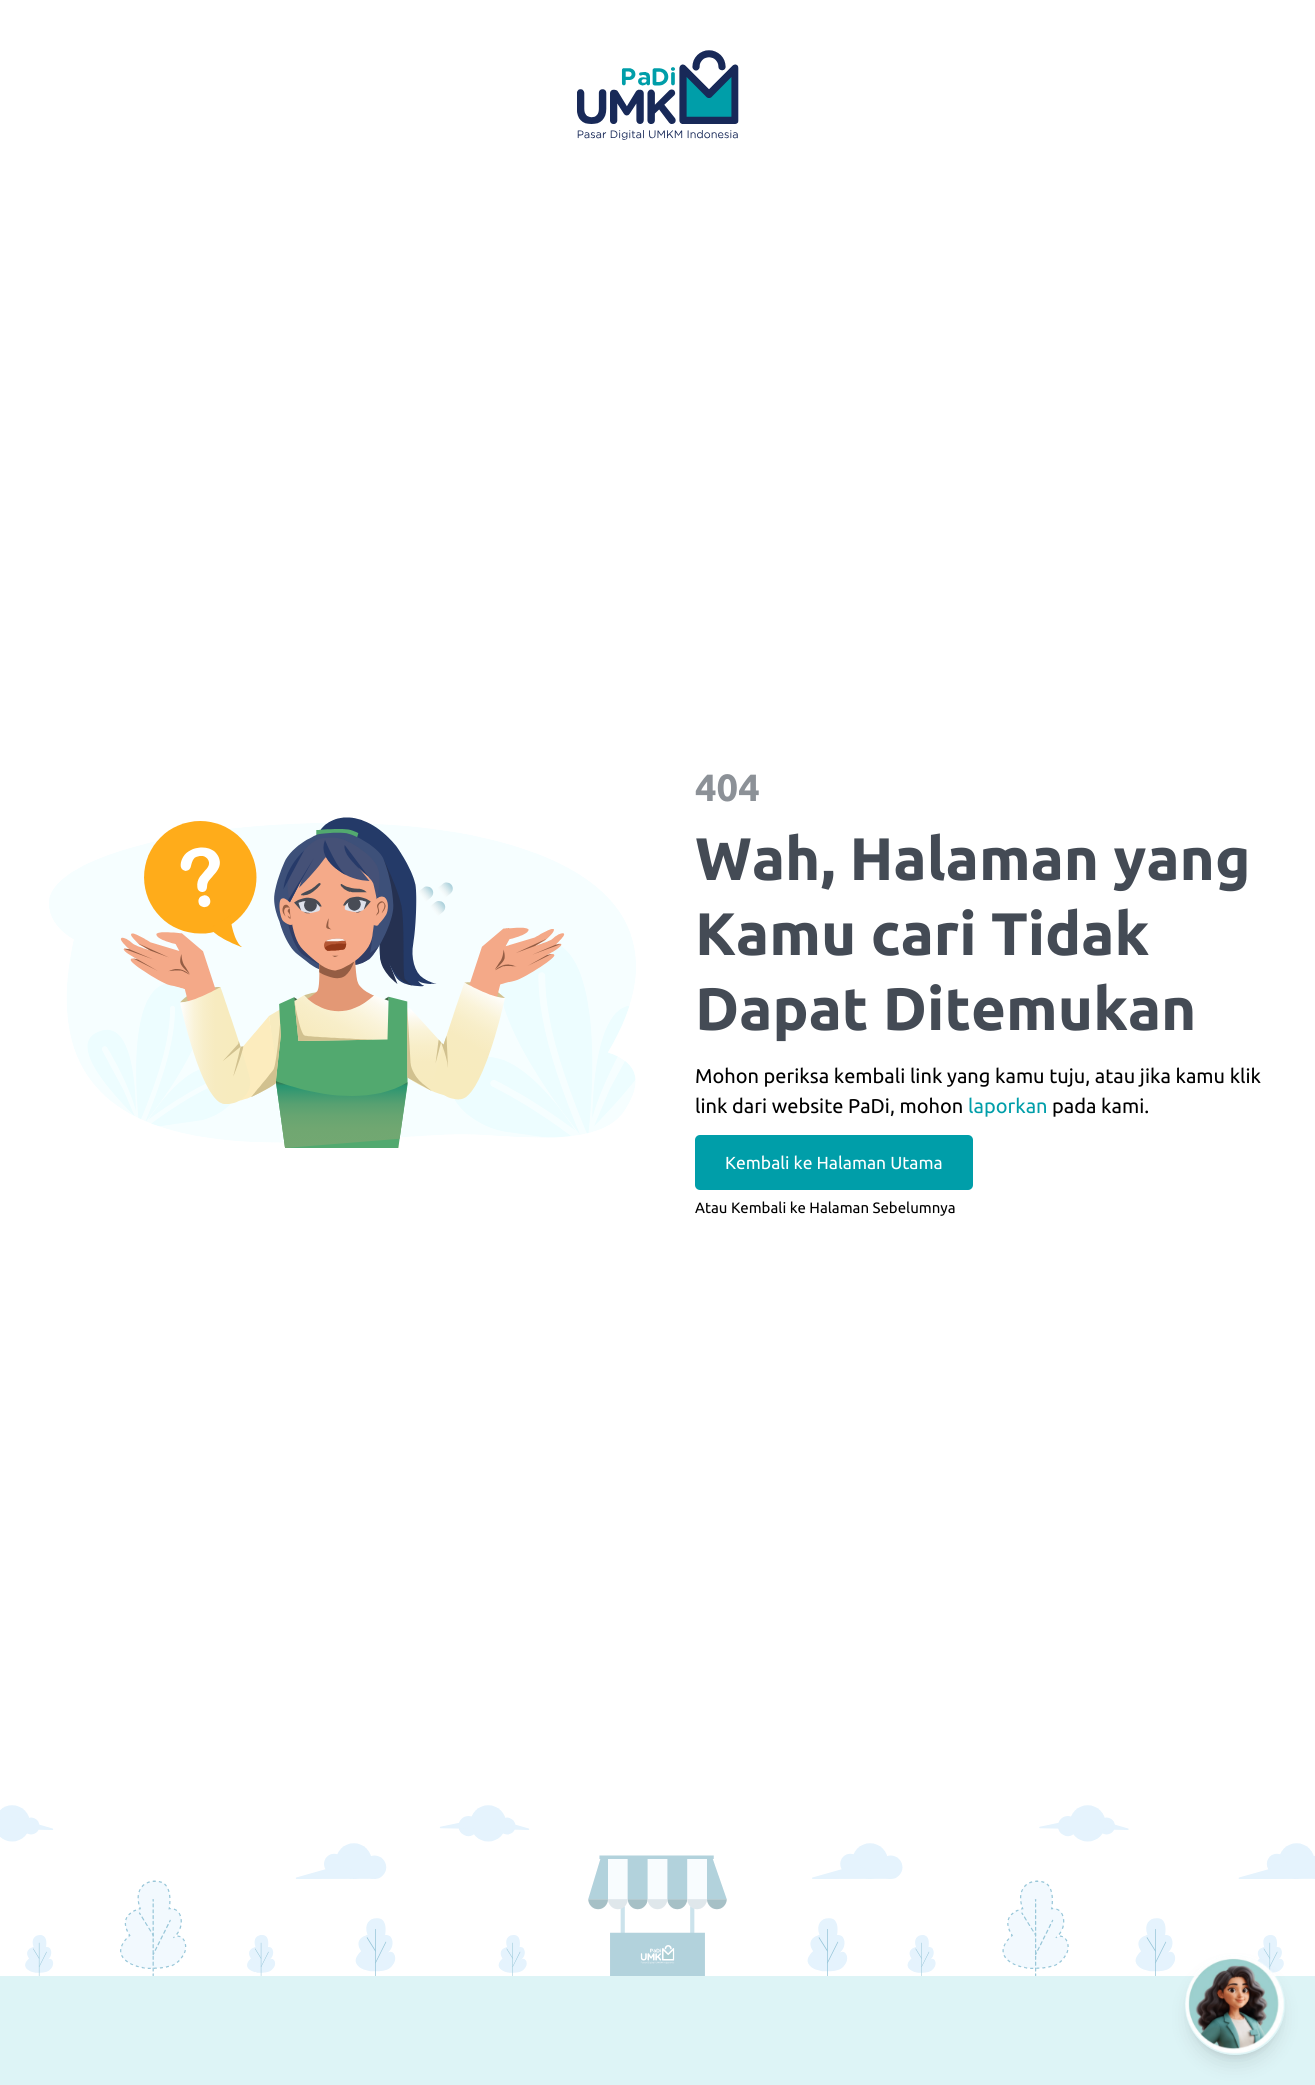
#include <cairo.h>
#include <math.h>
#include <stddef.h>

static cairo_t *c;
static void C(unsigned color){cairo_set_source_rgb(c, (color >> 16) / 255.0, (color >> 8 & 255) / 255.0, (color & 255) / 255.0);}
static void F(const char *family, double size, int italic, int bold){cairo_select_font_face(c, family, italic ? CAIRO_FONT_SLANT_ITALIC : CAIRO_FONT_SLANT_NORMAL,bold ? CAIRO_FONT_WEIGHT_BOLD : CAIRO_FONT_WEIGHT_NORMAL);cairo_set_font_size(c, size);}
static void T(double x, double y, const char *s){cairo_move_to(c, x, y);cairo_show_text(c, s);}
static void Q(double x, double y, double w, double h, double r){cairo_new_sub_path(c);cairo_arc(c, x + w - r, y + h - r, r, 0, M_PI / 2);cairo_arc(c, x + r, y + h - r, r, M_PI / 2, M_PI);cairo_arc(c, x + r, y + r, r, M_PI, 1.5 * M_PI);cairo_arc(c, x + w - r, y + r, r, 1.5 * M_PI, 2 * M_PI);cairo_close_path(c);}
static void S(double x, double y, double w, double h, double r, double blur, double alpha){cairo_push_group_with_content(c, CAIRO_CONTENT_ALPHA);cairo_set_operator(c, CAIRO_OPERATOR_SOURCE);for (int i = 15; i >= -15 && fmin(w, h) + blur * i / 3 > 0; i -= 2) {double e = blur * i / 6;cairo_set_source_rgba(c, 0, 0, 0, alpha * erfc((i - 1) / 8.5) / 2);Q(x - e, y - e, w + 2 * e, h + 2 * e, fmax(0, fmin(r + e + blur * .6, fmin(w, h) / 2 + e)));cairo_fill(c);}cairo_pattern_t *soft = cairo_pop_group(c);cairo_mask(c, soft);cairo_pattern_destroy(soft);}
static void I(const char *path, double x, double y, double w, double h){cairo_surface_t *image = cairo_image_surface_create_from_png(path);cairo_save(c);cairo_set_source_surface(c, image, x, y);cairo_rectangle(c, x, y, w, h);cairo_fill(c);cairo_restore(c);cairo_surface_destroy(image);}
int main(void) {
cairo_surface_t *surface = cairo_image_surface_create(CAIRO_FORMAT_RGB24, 1315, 2085);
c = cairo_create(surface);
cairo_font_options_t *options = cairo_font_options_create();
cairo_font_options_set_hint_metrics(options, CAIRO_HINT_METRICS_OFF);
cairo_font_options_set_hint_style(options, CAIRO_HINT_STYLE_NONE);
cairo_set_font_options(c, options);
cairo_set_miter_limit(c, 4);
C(0xffffff);
cairo_paint(c);
I("1.png",577,50,162,90);
I("2.png",49,817,587,331);
F("Ubuntu",38,0,1);
C(0x8c9197);
T(695,801,"404");
F("Ubuntu",60,0,1);
C(0x444b55);
T(695,880,"Wah, Halaman yang");
T(695,955,"Kamu cari Tidak");
T(695,1030,"Dapat Ditemukan");
F("Ubuntu",20,0,0);
C(0x000000);
T(695,1083,"Mohon periksa kembali link yang kamu tuju, atau jika kamu klik");
T(695,1113,"link dari website PaDi, mohon");
C(0x009ea9);
T(968,1113,"laporkan");
C(0x000000);
T(1052,1113,"pada kami.");
C(0x009ea9);
Q(695,1135,278,55,5);
cairo_fill(c);
F("Ubuntu",17.5,0,0);
C(0xffffff);
T(725,1169,"Kembali ke Halaman Utama");
F("Ubuntu",15,0,0);
C(0x000000);
T(695,1213,"Atau Kembali ke Halaman Sebelumnya");
I("3.png",0,1805,1315,280);
cairo_save(c);
cairo_set_fill_rule(c,CAIRO_FILL_RULE_EVEN_ODD);
cairo_new_path(c);
cairo_move_to(c,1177,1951);
cairo_line_to(c,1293,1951);
cairo_line_to(c,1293,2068);
cairo_line_to(c,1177,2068);
cairo_close_path(c);
cairo_move_to(c,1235,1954);
cairo_curve_to(c,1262.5,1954,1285,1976.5,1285,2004);
cairo_line_to(c,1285,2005);
cairo_curve_to(c,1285,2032.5,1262.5,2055,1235,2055);
cairo_curve_to(c,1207.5,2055,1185,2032.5,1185,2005);
cairo_line_to(c,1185,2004);
cairo_curve_to(c,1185,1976.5,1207.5,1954,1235,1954);
cairo_close_path(c);
cairo_clip(c);
C(0x000000);
S(1190,1964,90,91,45,4,.1);
cairo_restore(c);
cairo_save(c);
cairo_set_fill_rule(c,CAIRO_FILL_RULE_EVEN_ODD);
cairo_new_path(c);
cairo_move_to(c,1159,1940);
cairo_line_to(c,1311,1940);
cairo_line_to(c,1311,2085);
cairo_line_to(c,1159,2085);
cairo_close_path(c);
cairo_move_to(c,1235,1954);
cairo_curve_to(c,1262.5,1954,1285,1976.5,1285,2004);
cairo_line_to(c,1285,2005);
cairo_curve_to(c,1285,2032.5,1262.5,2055,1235,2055);
cairo_curve_to(c,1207.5,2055,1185,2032.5,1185,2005);
cairo_line_to(c,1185,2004);
cairo_curve_to(c,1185,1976.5,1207.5,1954,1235,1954);
cairo_close_path(c);
cairo_clip(c);
C(0x000000);
S(1189,1970,92,94,46,9.5,.1);
cairo_restore(c);
I("4.png",1185,1955,99,99);
cairo_surface_write_to_png(surface, "o.png");
cairo_font_options_destroy(options);
cairo_destroy(c);
cairo_surface_destroy(surface);
return 0;
}
